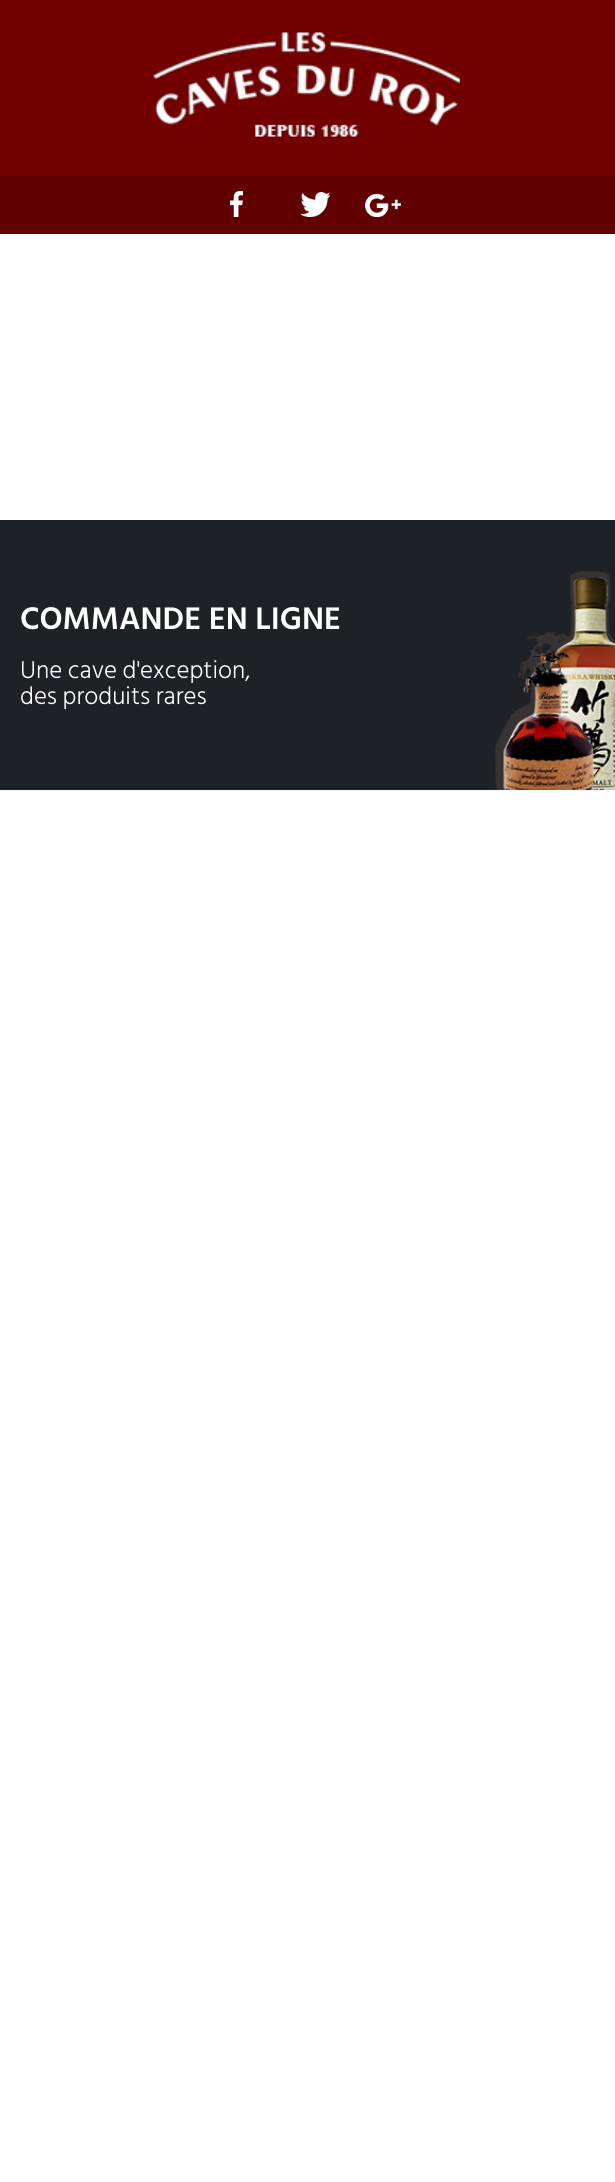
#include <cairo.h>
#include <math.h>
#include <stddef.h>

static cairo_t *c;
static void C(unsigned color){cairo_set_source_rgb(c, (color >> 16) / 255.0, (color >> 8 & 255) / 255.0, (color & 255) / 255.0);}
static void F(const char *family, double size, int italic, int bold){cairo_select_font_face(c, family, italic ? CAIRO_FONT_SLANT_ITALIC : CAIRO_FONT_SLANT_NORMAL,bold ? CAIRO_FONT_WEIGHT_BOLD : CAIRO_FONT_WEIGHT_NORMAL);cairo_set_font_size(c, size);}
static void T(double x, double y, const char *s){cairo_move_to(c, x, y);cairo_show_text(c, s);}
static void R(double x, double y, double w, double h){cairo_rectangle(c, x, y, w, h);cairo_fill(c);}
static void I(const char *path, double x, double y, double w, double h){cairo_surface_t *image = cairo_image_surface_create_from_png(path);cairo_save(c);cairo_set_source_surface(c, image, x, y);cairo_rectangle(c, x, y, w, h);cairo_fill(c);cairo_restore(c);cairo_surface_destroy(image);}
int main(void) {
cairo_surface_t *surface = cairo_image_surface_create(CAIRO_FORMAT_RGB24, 615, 2182);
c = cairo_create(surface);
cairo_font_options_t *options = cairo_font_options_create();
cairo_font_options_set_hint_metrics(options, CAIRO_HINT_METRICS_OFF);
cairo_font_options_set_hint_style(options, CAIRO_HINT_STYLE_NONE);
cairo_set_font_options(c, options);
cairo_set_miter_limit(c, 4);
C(0xffffff);
cairo_paint(c);
C(0x720000);
R(0,0,615,176);
I("1.png",153,31,308,107);
C(0x610000);
R(0,176,615,58);
I("2.png",230,191,13,26);
I("3.png",301,192,29,25);
I("4.png",365,194,36,23);
C(0x1e2126);
R(0,520,615,270);
F("Hind Siliguri SemiBold",32,0,0);
C(0xffffff);
T(20,629,"COMMANDE EN LIGNE");
F("Hind Siliguri Light",25,0,0);
T(20,678,"Une cave d'exception,");
I("5.png",495,571,120,219);
T(20,704,"des produits rares");
cairo_surface_write_to_png(surface, "o.png");
cairo_font_options_destroy(options);
cairo_destroy(c);
cairo_surface_destroy(surface);
return 0;
}
